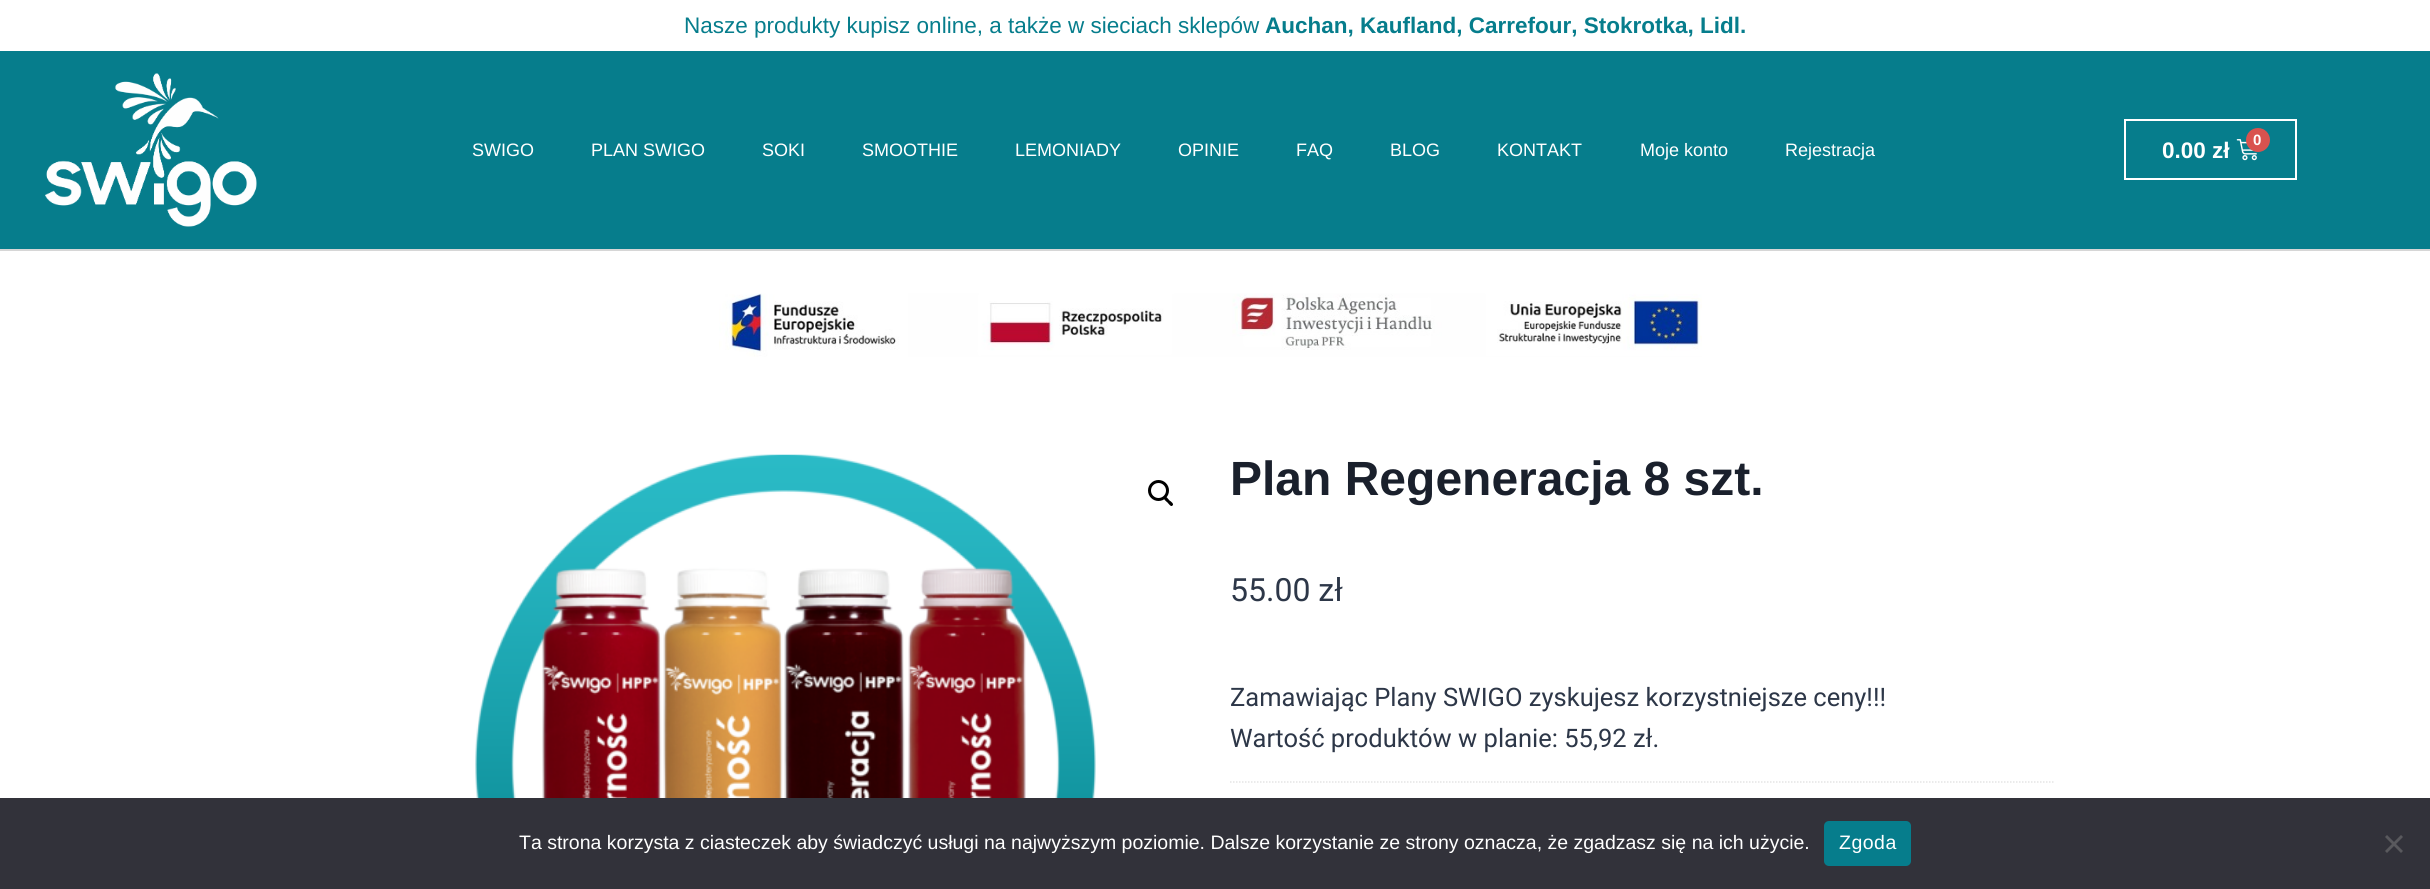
#include <cairo.h>
#include <math.h>
#include <stddef.h>

static cairo_t *c;
static void C(unsigned color){cairo_set_source_rgb(c, (color >> 16) / 255.0, (color >> 8 & 255) / 255.0, (color & 255) / 255.0);}
static void F(const char *family, double size, int italic, int bold){cairo_select_font_face(c, family, italic ? CAIRO_FONT_SLANT_ITALIC : CAIRO_FONT_SLANT_NORMAL,bold ? CAIRO_FONT_WEIGHT_BOLD : CAIRO_FONT_WEIGHT_NORMAL);cairo_set_font_size(c, size);}
static void T(double x, double y, const char *s){cairo_move_to(c, x, y);cairo_show_text(c, s);}
static void L(double x, double y, const char *s, double letter, double word){cairo_move_to(c, x, y);while (*s) {char ch[5] = {0};int n = 0;do ch[n++] = *s++; while ((*s & 0xC0) == 0x80);cairo_show_text(c, ch);cairo_rel_move_to(c, letter + word * (*ch == ' '), 0);}}
static void R(double x, double y, double w, double h){cairo_rectangle(c, x, y, w, h);cairo_fill(c);}
static void Q(double x, double y, double w, double h, double r){cairo_new_sub_path(c);cairo_arc(c, x + w - r, y + h - r, r, 0, M_PI / 2);cairo_arc(c, x + r, y + h - r, r, M_PI / 2, M_PI);cairo_arc(c, x + r, y + r, r, M_PI, 1.5 * M_PI);cairo_arc(c, x + w - r, y + r, r, 1.5 * M_PI, 2 * M_PI);cairo_close_path(c);}
static void I(const char *path, double x, double y, double w, double h){cairo_surface_t *image = cairo_image_surface_create_from_png(path);cairo_save(c);cairo_set_source_surface(c, image, x, y);cairo_rectangle(c, x, y, w, h);cairo_fill(c);cairo_restore(c);cairo_surface_destroy(image);}
int main(void) {
cairo_surface_t *surface = cairo_image_surface_create(CAIRO_FORMAT_RGB24, 2430, 889);
c = cairo_create(surface);
cairo_font_options_t *options = cairo_font_options_create();
cairo_font_options_set_hint_metrics(options, CAIRO_HINT_METRICS_OFF);
cairo_font_options_set_hint_style(options, CAIRO_HINT_STYLE_NONE);
cairo_set_font_options(c, options);
cairo_set_miter_limit(c, 4);
C(0xffffff);
cairo_paint(c);
F("Liberation Sans",22.5,0,0);
C(0x067d8c);
T(684,33,"Nasze produkty kupisz online, a także w sieciach sklepów");
F("Liberation Sans",22.5,0,1);
T(1265,33,"Auchan, Kaufland, Carrefour, Stokrotka, Lidl.");
R(0,51,2430,198);
C(0xd6d6d6);
R(0,249,2430,2);
I("1.png",45,73,212,154);
F("Liberation Sans",18,0,0);
C(0xffffff);
T(472,156,"SWIGO");
T(591,156,"PLAN SWIGO");
T(762,156,"SOKI");
T(862,156,"SMOOTHIE");
T(1015,156,"LEMONIADY");
T(1178,156,"OPINIE");
T(1296,156,"FAQ");
T(1390,156,"BLOG");
T(1497,156,"KONTAKT");
T(1640,156,"Moje konto");
T(1785,156,"Rejestracja");
cairo_rectangle(c,2125,120,171,59);
cairo_stroke(c);
F("Liberation Sans",22.5,0,1);
T(2162,158,"0.00 zł");
I("2.png",2236,139,21,22);
C(0xd9534f);
cairo_arc(c,2258,140,12,0,2 * M_PI);
cairo_fill(c);
F("Liberation Sans",15,0,1);
C(0xffffff);
T(2253,145,"0");
I("3.png",719,293,983,64);
I("4.png",475,454,621,344);
cairo_arc(c,1158.5,490.5,9,0,2 * M_PI);
C(0x000000);
cairo_set_line_width(c,3);
cairo_stroke(c);
cairo_new_path(c);
cairo_move_to(c,1164.5,497);
cairo_curve_to(c,1166,495.5,1168.5,499.5,1169.5,500.5);
cairo_curve_to(c,1170.5,501,1174.5,504,1172.5,505.5);
cairo_curve_to(c,1171,507.5,1168.5,503.5,1167.5,502.5);
cairo_curve_to(c,1166.5,501.5,1162.5,499,1164.5,497);
cairo_close_path(c);
cairo_fill(c);
F("Liberation Sans",48,0,1);
C(0x1a202c);
T(1230,495,"Plan Regeneracja 8 szt.");
F("Roboto",32,0,0);
C(0x2d3748);
T(1230,601,"55.00 zł");
F("Roboto",25.5,0,0);
T(1230,706,"Zamawiając Plany SWIGO zyskujesz korzystniejsze ceny!!!");
T(1230,747,"Wartość produktów w planie: 55,92 zł.");
cairo_new_path(c);
cairo_move_to(c,1230,782);
cairo_line_to(c,2055,782);
C(0xe5e5e5);
cairo_set_line_width(c,1.5);
cairo_set_dash(c,(double[]){1.5,1.5},2,0);
cairo_stroke(c);
C(0x32323a);
R(0,798,2430,91);
F("Liberation Sans",19.5,0,0);
C(0xffffff);
T(519,849,"Ta strona korzysta z ciasteczek aby świadczyć usługi na najwyższym poziomie. Dalsze korzystanie ze strony oznacza, że zgadzasz się na ich użycie.");
C(0x067d8c);
Q(1824,821,87,45,5);
cairo_fill(c);
C(0xffffff);
L(1839,849,"Zgoda",.5,0);
C(0x59595d);
cairo_new_path(c);
cairo_move_to(c,2401,835);
cairo_line_to(c,2403,837);
cairo_line_to(c,2387,853);
cairo_line_to(c,2385,851);
cairo_close_path(c);
cairo_fill(c);
cairo_new_path(c);
cairo_move_to(c,2385,837);
cairo_line_to(c,2387,835);
cairo_line_to(c,2403,851);
cairo_line_to(c,2401,853);
cairo_close_path(c);
cairo_fill(c);
cairo_surface_write_to_png(surface, "o.png");
cairo_font_options_destroy(options);
cairo_destroy(c);
cairo_surface_destroy(surface);
return 0;
}
